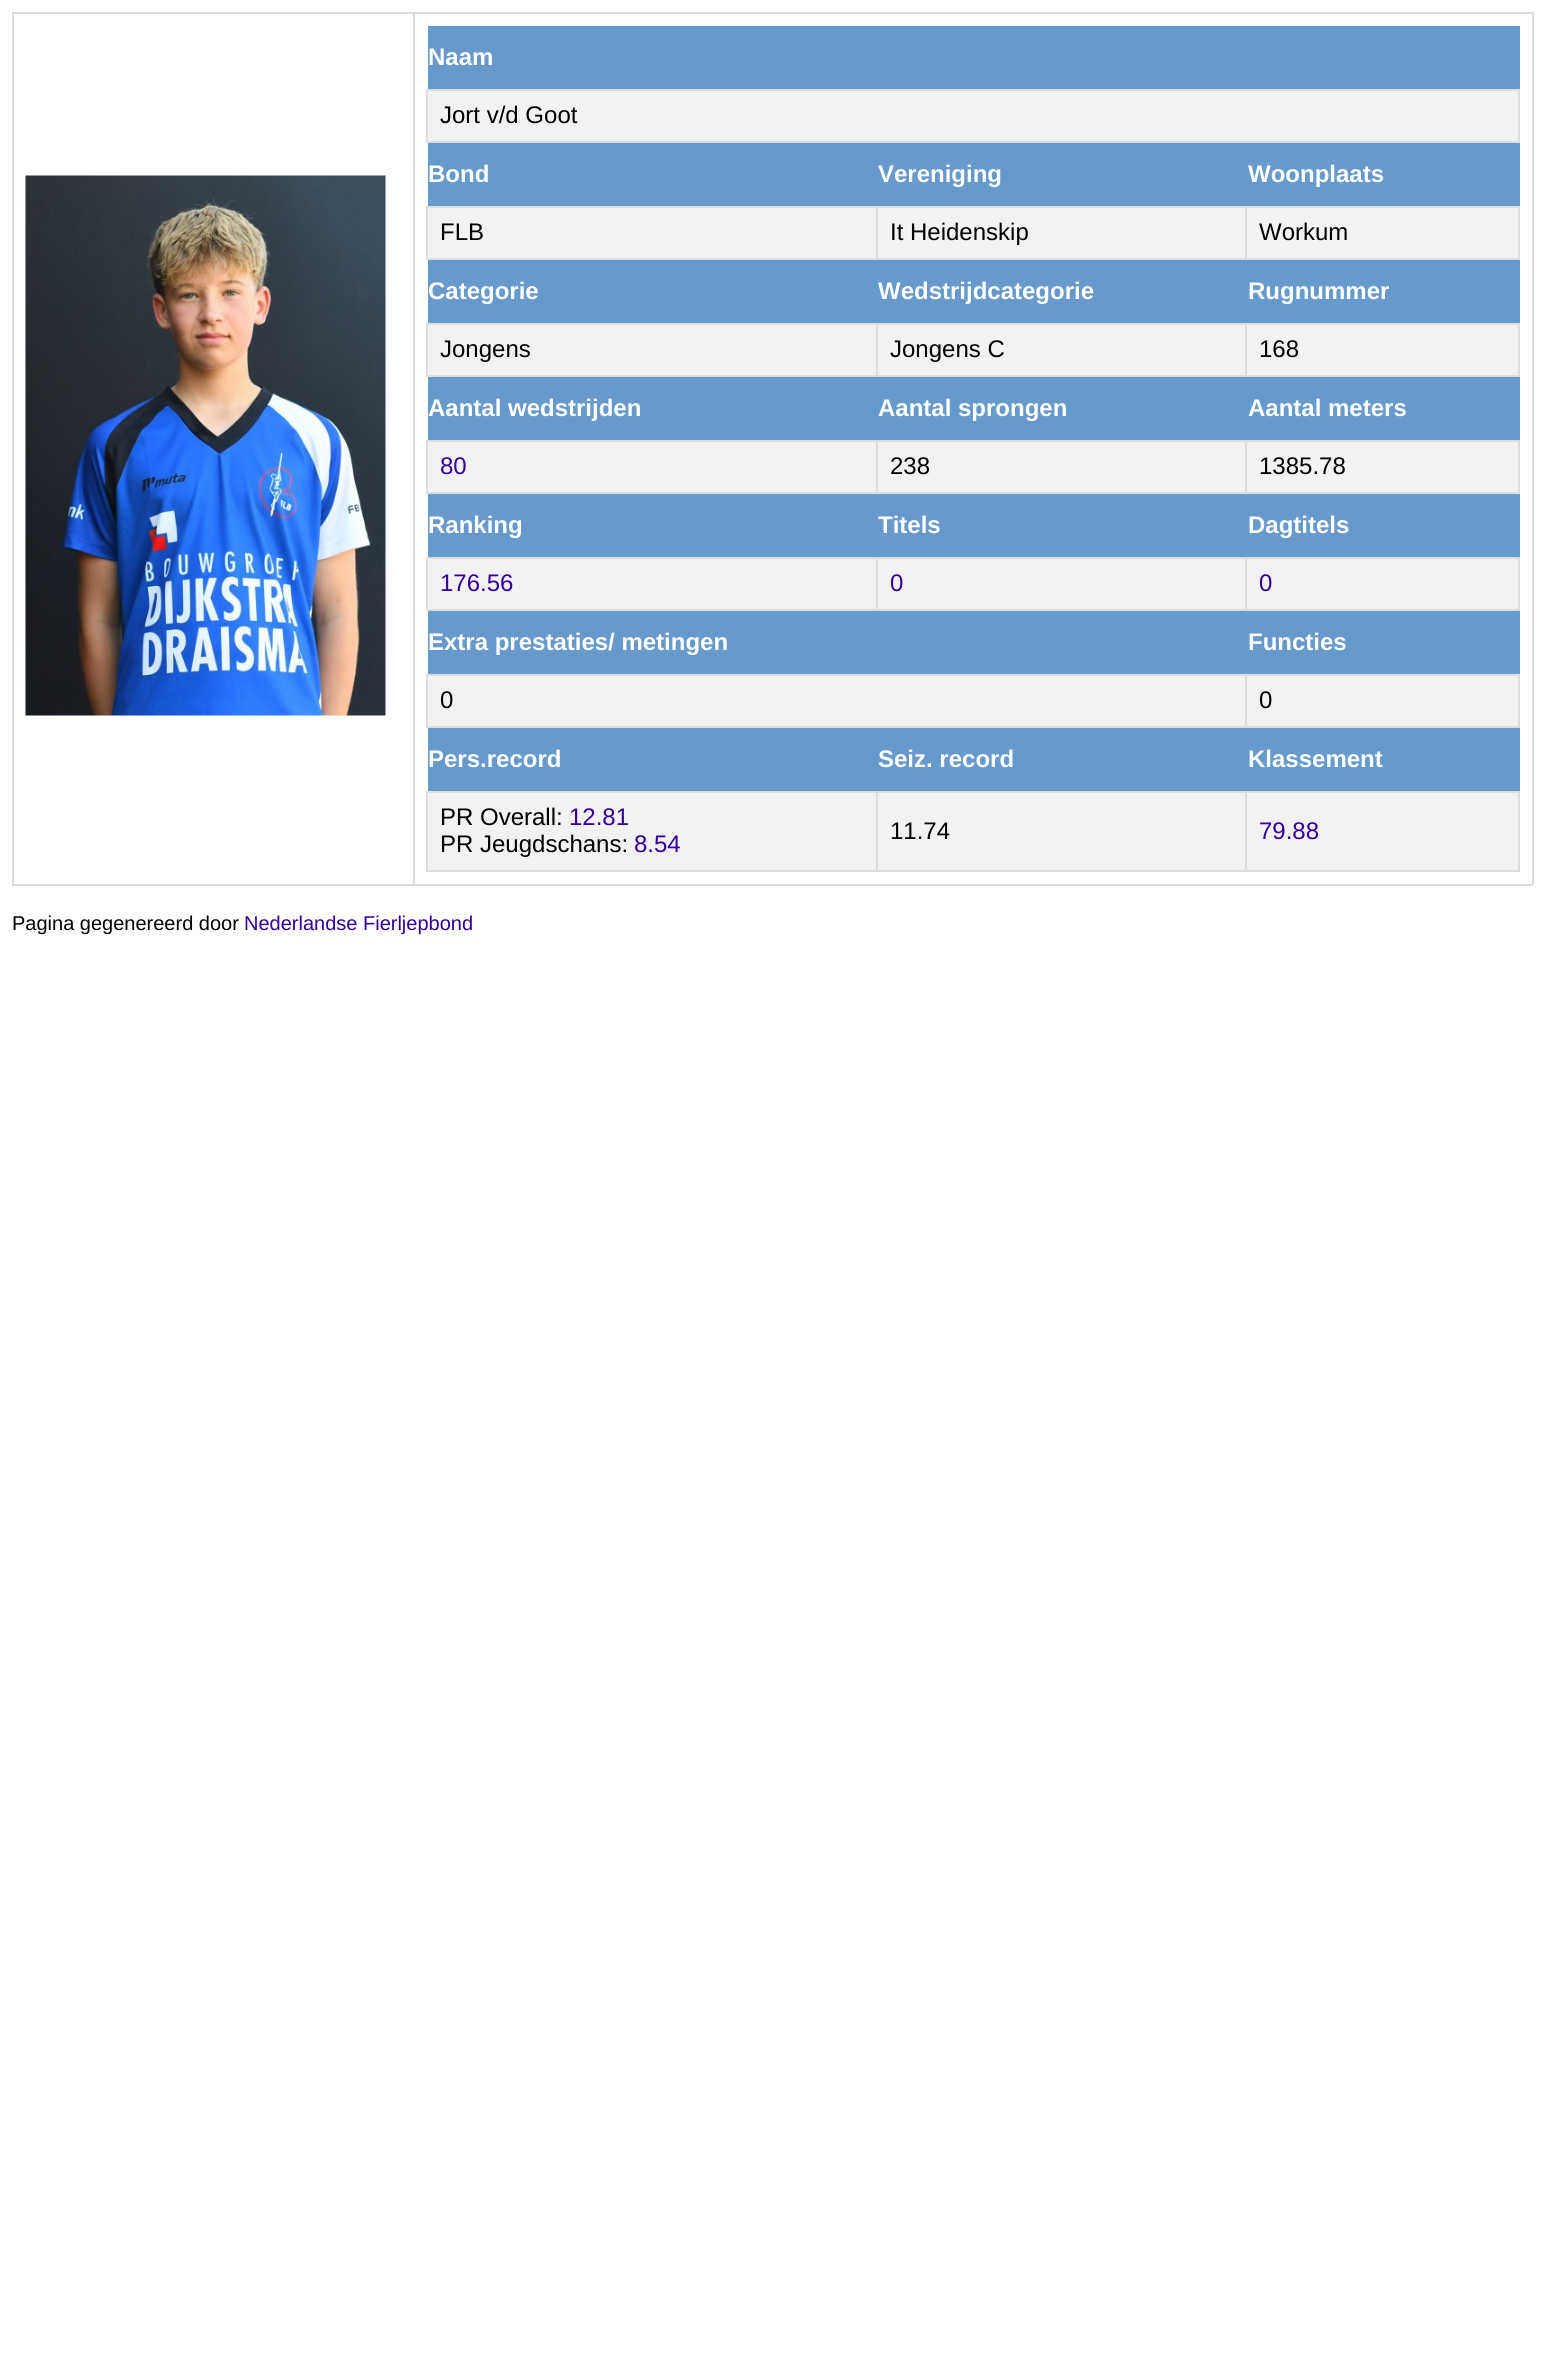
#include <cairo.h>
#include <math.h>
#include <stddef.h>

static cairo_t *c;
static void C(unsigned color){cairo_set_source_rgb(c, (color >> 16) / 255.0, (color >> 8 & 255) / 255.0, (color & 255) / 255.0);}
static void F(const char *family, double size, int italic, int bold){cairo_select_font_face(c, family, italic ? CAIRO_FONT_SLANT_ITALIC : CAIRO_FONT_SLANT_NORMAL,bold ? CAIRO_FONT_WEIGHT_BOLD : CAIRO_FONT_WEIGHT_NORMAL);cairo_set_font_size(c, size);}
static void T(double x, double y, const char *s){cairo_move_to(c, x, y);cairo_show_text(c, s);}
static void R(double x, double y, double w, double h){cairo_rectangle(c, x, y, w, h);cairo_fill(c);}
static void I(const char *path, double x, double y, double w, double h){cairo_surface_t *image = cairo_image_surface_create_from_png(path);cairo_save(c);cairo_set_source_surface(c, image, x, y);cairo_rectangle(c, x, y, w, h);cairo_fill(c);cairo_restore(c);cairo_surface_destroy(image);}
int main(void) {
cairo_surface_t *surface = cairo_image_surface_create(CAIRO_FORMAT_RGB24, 1545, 2370);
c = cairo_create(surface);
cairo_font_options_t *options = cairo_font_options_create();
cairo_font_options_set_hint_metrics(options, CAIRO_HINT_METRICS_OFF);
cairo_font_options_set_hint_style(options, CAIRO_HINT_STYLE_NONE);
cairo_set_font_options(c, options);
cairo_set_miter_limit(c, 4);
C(0xffffff);
cairo_paint(c);
C(0xdddddd);
R(413,12,1120,2);
R(1532,12,2,873);
R(413,884,1120,2);
R(413,12,2,873);
R(12,12,402,2);
R(12,884,402,2);
R(12,12,2,873);
I("1.png",25,175,361,541);
C(0x6699cc);
R(428,26,1092,63);
F("Liberation Sans",24,0,1);
C(0xffffff);
T(428,65,"Naam");
C(0xf2f2f2);
R(428,91,1090,50);
C(0xdddddd);
R(426,89,1094,2);
R(1518,89,2,54);
R(426,141,1094,2);
R(426,89,2,54);
F("Liberation Sans",24,0,0);
C(0x000000);
T(440,123,"Jort v/d Goot");
C(0x6699cc);
R(428,143,1092,63);
F("Liberation Sans",24,0,1);
C(0xffffff);
T(428,182,"Bond");
T(878,182,"Vereniging");
T(1248,182,"Woonplaats");
C(0xf2f2f2);
R(428,208,1090,50);
C(0xdddddd);
R(1245,206,275,2);
R(1518,206,2,54);
R(1245,258,275,2);
R(1245,206,2,54);
R(876,206,371,2);
R(876,258,371,2);
R(876,206,2,54);
R(426,206,452,2);
R(426,258,452,2);
R(426,206,2,54);
F("Liberation Sans",24,0,0);
C(0x000000);
T(440,240,"FLB");
T(890,240,"It Heidenskip");
T(1259,240,"Workum");
C(0x6699cc);
R(428,260,1092,63);
F("Liberation Sans",24,0,1);
C(0xffffff);
T(428,299,"Categorie");
T(878,299,"Wedstrijdcategorie");
T(1248,299,"Rugnummer");
C(0xf2f2f2);
R(428,325,1090,50);
C(0xdddddd);
R(1245,323,275,2);
R(1518,323,2,54);
R(1245,375,275,2);
R(1245,323,2,54);
R(876,323,371,2);
R(876,375,371,2);
R(876,323,2,54);
R(426,323,452,2);
R(426,375,452,2);
R(426,323,2,54);
F("Liberation Sans",24,0,0);
C(0x000000);
T(440,357,"Jongens");
T(890,357,"Jongens C");
T(1259,357,"168");
C(0x6699cc);
R(428,377,1092,63);
F("Liberation Sans",24,0,1);
C(0xffffff);
T(428,416,"Aantal wedstrijden");
T(878,416,"Aantal sprongen");
T(1248,416,"Aantal meters");
C(0xf2f2f2);
R(428,442,1090,50);
C(0xdddddd);
R(1245,440,275,2);
R(1518,440,2,54);
R(1245,492,275,2);
R(1245,440,2,54);
R(876,440,371,2);
R(876,492,371,2);
R(876,440,2,54);
R(426,440,452,2);
R(426,492,452,2);
R(426,440,2,54);
F("Liberation Sans",24,0,0);
C(0x330099);
T(440,474,"80");
C(0x000000);
T(890,474,"238");
T(1259,474,"1385.78");
C(0x6699cc);
R(428,494,1092,63);
F("Liberation Sans",24,0,1);
C(0xffffff);
T(428,533,"Ranking");
T(878,533,"Titels");
T(1248,533,"Dagtitels");
C(0xf2f2f2);
R(428,559,1090,50);
C(0xdddddd);
R(1245,557,275,2);
R(1518,557,2,54);
R(1245,609,275,2);
R(1245,557,2,54);
R(876,557,371,2);
R(876,609,371,2);
R(876,557,2,54);
R(426,557,452,2);
R(426,609,452,2);
R(426,557,2,54);
F("Liberation Sans",24,0,0);
C(0x330099);
T(440,591,"176.56");
T(890,591,"0");
T(1259,591,"0");
C(0x6699cc);
R(428,611,1092,63);
F("Liberation Sans",24,0,1);
C(0xffffff);
T(428,650,"Extra prestaties/ metingen");
T(1248,650,"Functies");
C(0xf2f2f2);
R(428,676,1090,50);
C(0xdddddd);
R(1245,674,275,2);
R(1518,674,2,54);
R(1245,726,275,2);
R(1245,674,2,54);
R(426,674,821,2);
R(426,726,821,2);
R(426,674,2,54);
F("Liberation Sans",24,0,0);
C(0x000000);
T(440,708,"0");
T(1259,708,"0");
C(0x6699cc);
R(428,728,1092,63);
F("Liberation Sans",24,0,1);
C(0xffffff);
T(428,767,"Pers.record");
T(878,767,"Seiz. record");
T(1248,767,"Klassement");
C(0xf2f2f2);
R(428,793,1090,77);
C(0xdddddd);
R(1245,791,275,2);
R(1518,791,2,81);
R(1245,870,275,2);
R(1245,791,2,81);
R(876,791,371,2);
R(876,870,371,2);
R(876,791,2,81);
R(426,791,452,2);
R(426,870,452,2);
R(426,791,2,81);
F("Liberation Sans",24,0,0);
C(0x000000);
T(440,825,"PR Overall:");
C(0x330099);
T(569,825,"12.81");
C(0x000000);
T(440,852,"PR Jeugdschans:");
C(0x330099);
T(634,852,"8.54");
C(0x000000);
T(890,839,"11.74");
C(0x330099);
T(1259,839,"79.88");
F("Liberation Sans",20,0,0);
C(0x000000);
T(12,930,"Pagina gegenereerd door");
C(0x330099);
T(244,930,"Nederlandse Fierljepbond");
cairo_surface_write_to_png(surface, "o.png");
cairo_font_options_destroy(options);
cairo_destroy(c);
cairo_surface_destroy(surface);
return 0;
}
